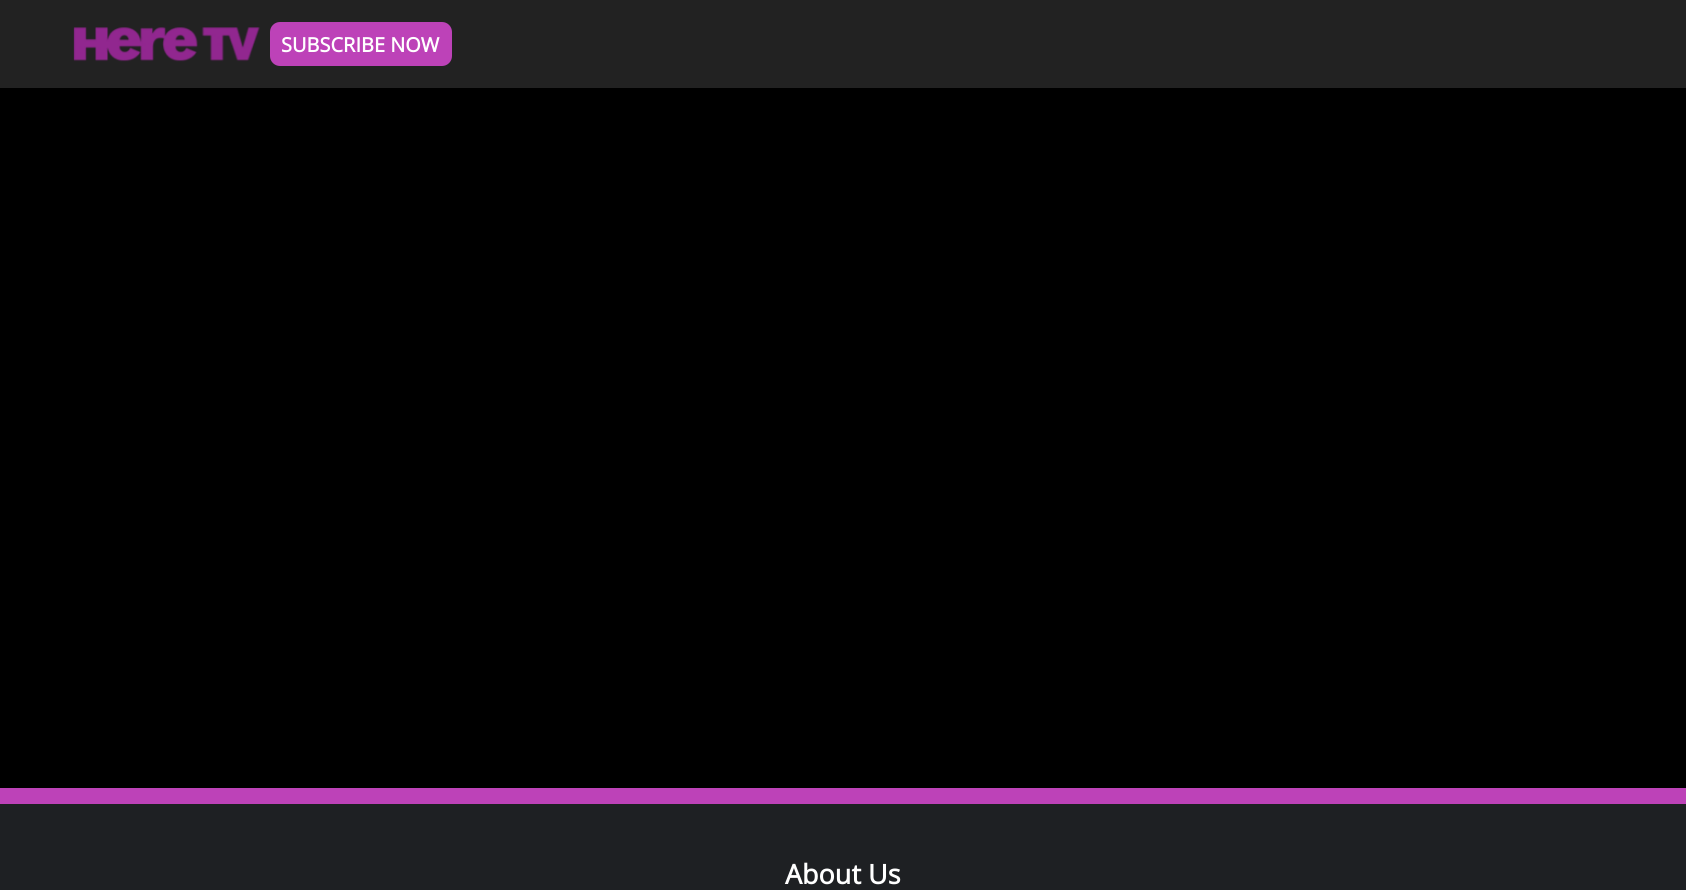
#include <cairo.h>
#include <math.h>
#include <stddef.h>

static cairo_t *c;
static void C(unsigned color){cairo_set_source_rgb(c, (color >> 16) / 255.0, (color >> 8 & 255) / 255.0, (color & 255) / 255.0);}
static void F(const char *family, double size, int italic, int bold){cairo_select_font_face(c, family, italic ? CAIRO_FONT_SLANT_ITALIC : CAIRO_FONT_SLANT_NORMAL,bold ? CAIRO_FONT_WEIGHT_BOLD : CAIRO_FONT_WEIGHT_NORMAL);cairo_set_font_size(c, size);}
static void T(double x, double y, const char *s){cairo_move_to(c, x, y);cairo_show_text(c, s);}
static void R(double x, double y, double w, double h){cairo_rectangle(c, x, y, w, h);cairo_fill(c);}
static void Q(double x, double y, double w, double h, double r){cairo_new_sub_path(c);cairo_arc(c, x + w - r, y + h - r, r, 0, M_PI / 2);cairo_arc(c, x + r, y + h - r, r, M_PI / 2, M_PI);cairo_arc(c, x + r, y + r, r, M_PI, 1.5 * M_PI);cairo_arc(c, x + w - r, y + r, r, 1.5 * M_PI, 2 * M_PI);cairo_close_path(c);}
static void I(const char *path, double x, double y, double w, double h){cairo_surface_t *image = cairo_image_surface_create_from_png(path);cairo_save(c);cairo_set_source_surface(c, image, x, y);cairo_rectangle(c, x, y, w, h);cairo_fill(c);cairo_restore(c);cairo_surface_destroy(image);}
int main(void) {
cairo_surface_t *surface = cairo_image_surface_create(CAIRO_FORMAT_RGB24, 1686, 890);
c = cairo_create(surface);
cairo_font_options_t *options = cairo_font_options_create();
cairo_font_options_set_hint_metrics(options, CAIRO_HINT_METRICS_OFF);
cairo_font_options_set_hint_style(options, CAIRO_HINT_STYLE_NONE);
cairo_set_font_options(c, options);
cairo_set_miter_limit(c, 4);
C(0x000000);
cairo_paint(c);
C(0x222222);
R(0,0,1686,88);
I("1.png",73,27,187,35);
C(0xbd42b8);
Q(271,23,180,42,9);
cairo_fill_preserve(c);
cairo_stroke(c);
F("Open Sans",20,0,1);
C(0xffffff);
T(281,52,"SUBSCRIBE NOW");
C(0x1e2023);
R(0,804,1686,86);
C(0xbd42b8);
R(0,788,1686,16);
F("Open Sans",27,0,1);
C(0xffffff);
T(785,884,"About Us");
cairo_surface_write_to_png(surface, "o.png");
cairo_font_options_destroy(options);
cairo_destroy(c);
cairo_surface_destroy(surface);
return 0;
}
